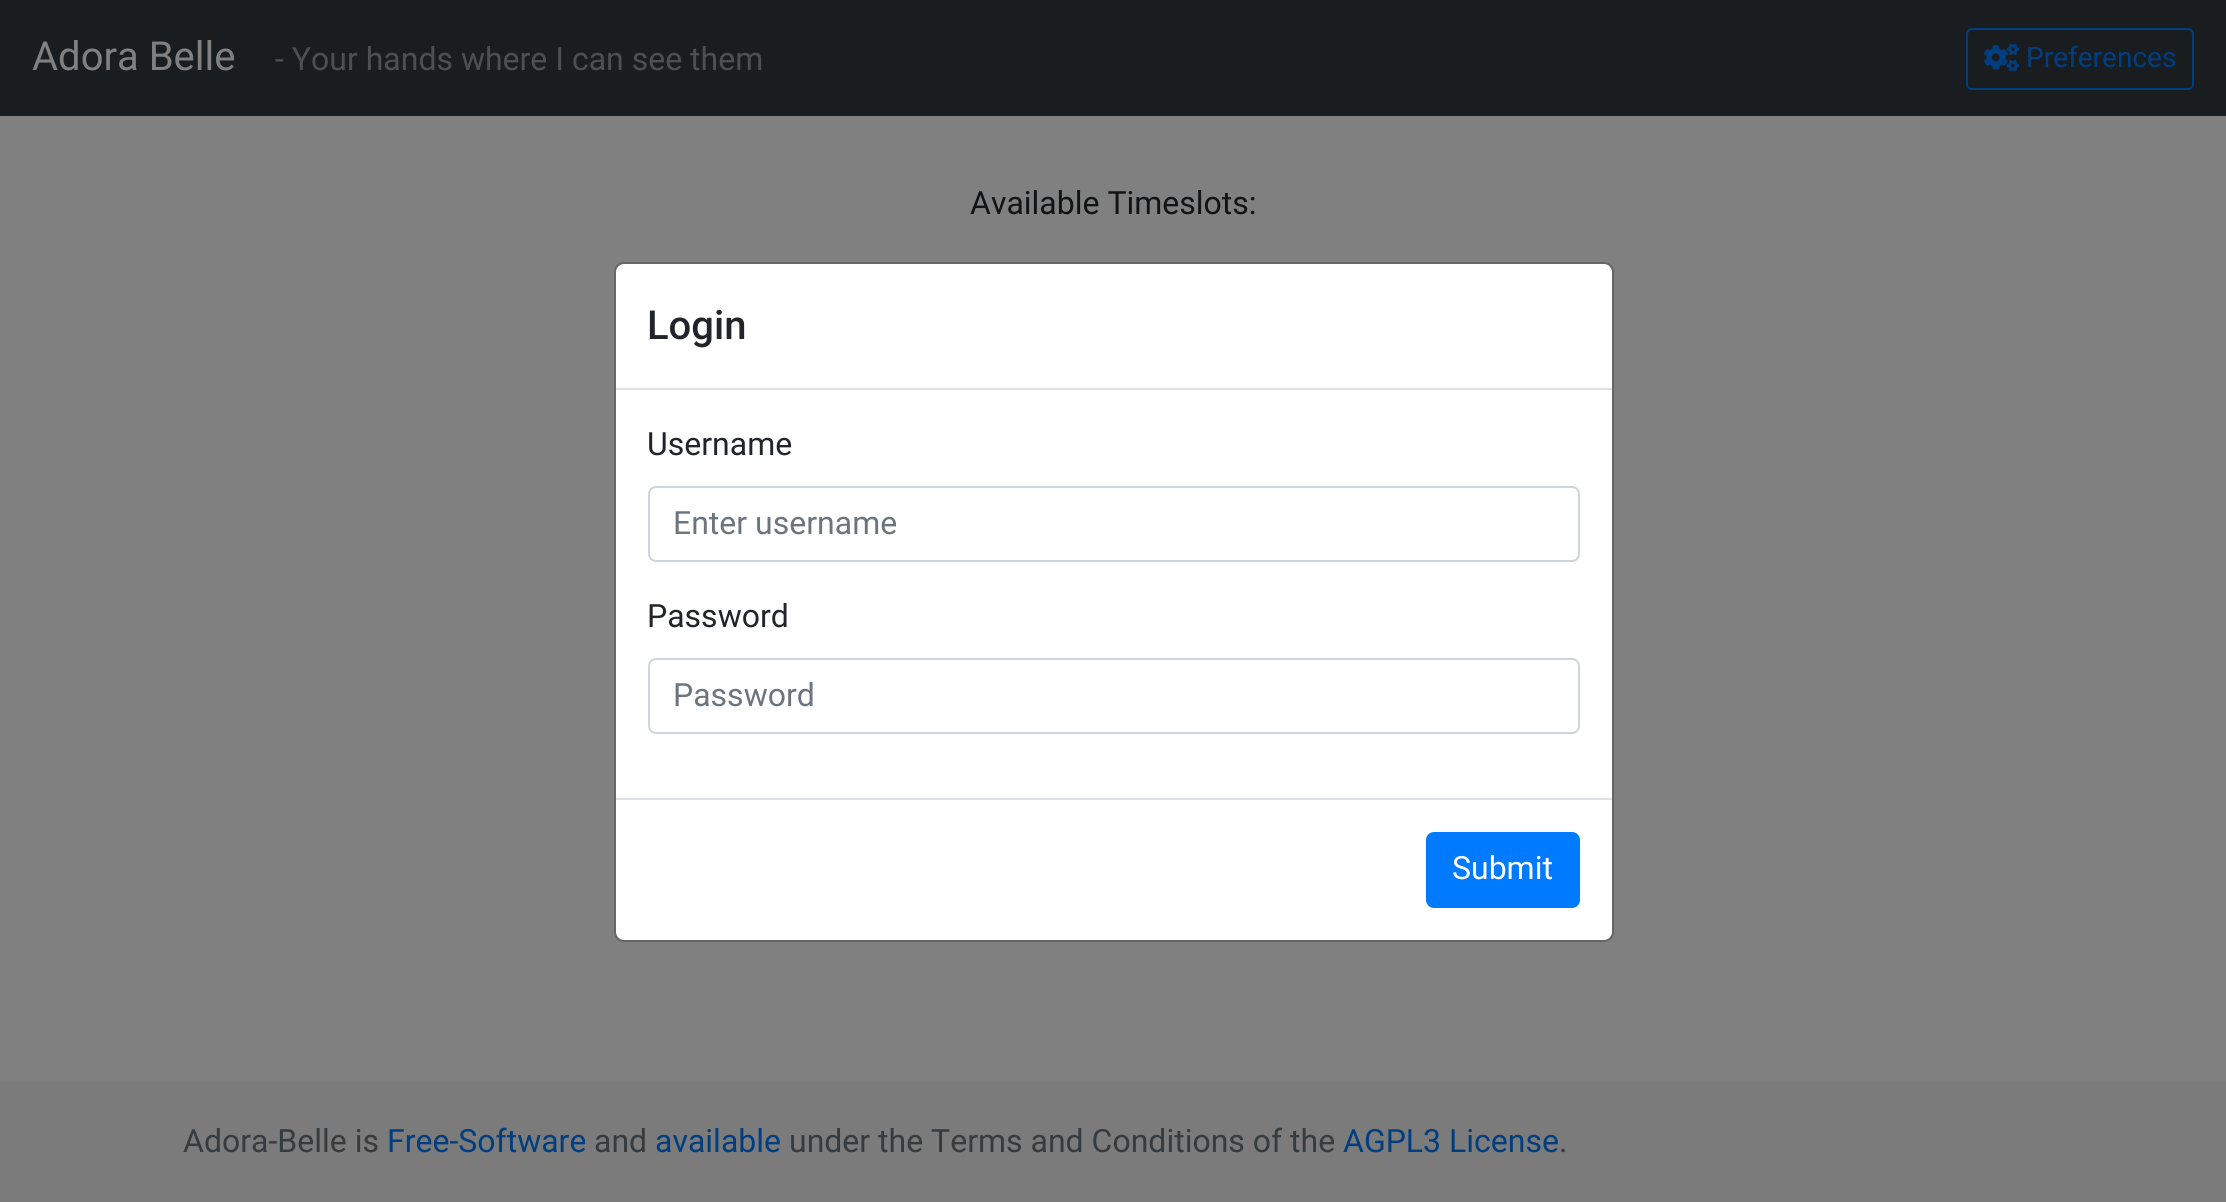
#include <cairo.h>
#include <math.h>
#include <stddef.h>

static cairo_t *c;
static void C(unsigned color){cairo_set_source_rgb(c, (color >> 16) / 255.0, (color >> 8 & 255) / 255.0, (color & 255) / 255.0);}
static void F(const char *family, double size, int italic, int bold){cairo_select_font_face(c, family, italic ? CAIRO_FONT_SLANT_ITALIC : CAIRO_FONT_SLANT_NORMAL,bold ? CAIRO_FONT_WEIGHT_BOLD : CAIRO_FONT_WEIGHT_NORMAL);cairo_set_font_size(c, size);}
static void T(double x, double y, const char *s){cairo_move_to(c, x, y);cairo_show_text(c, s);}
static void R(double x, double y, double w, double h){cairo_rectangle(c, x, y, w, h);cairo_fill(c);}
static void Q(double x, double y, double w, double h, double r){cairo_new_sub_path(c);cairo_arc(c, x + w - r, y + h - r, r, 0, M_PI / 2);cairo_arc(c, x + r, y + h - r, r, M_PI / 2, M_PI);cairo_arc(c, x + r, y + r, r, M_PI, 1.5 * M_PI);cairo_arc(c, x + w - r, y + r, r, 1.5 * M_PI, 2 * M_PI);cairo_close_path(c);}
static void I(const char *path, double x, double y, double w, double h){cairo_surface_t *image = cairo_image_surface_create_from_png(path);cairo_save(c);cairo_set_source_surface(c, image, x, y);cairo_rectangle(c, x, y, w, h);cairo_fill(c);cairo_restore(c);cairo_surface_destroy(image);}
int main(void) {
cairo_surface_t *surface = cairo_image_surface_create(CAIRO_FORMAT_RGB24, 2226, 1202);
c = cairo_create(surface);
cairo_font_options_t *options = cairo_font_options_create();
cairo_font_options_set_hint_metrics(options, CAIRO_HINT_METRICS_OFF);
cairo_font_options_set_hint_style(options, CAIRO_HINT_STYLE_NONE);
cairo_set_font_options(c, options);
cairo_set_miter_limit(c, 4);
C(0x808080);
cairo_paint(c);
C(0x1a1d20);
R(0,0,2226,116);
F("Roboto",40,0,0);
C(0x808080);
T(32,70,"Adora Belle");
F("Roboto",32,0,0);
C(0x4d4f50);
T(275,70,"- Your hands where I can see them");
Q(1967,29,226,60,5);
C(0x003e80);
cairo_stroke(c);
I("1.png",1984,43,36,29);
F("Roboto",28,0,0);
T(2026,67,"Preferences");
F("Roboto",32,0,0);
C(0x111315);
T(970,214,"Available Timeslots:");
C(0xffffff);
Q(616,264,996,676,8);
cairo_fill(c);
Q(615,263,998,678,9);
cairo_set_source_rgba(c,0,0,0,0.2);
cairo_stroke(c);
C(0xdee2e6);
R(616,388,996,2);
F("Roboto Medium",40,0,0);
C(0x212529);
T(647,339,"Login");
F("Roboto",32,0,0);
T(647,455,"Username");
Q(649,487,930,74,7);
C(0xced4da);
cairo_stroke(c);
C(0x6c757d);
T(673,534,"Enter username");
C(0x212529);
T(647,627,"Password");
Q(649,659,930,74,7);
C(0xced4da);
cairo_stroke(c);
C(0x6c757d);
T(673,706,"Password");
C(0xdee2e6);
R(616,798,996,2);
C(0x007bff);
Q(1427,833,152,74,7);
cairo_fill_preserve(c);
cairo_stroke(c);
C(0xffffff);
T(1452,879,"Submit");
C(0x7b7b7b);
R(0,1082,2226,120);
C(0x363b3f);
T(183,1152,"Adora-Belle is");
C(0x003e80);
T(387,1152,"Free-Software");
C(0x363b3f);
T(594,1152,"and");
C(0x003e80);
T(655,1152,"available");
C(0x363b3f);
T(789,1152,"under the Terms and Conditions of the");
C(0x003e80);
T(1343,1152,"AGPL3 License");
C(0x363b3f);
T(1559,1152,".");
cairo_surface_write_to_png(surface, "o.png");
cairo_font_options_destroy(options);
cairo_destroy(c);
cairo_surface_destroy(surface);
return 0;
}
